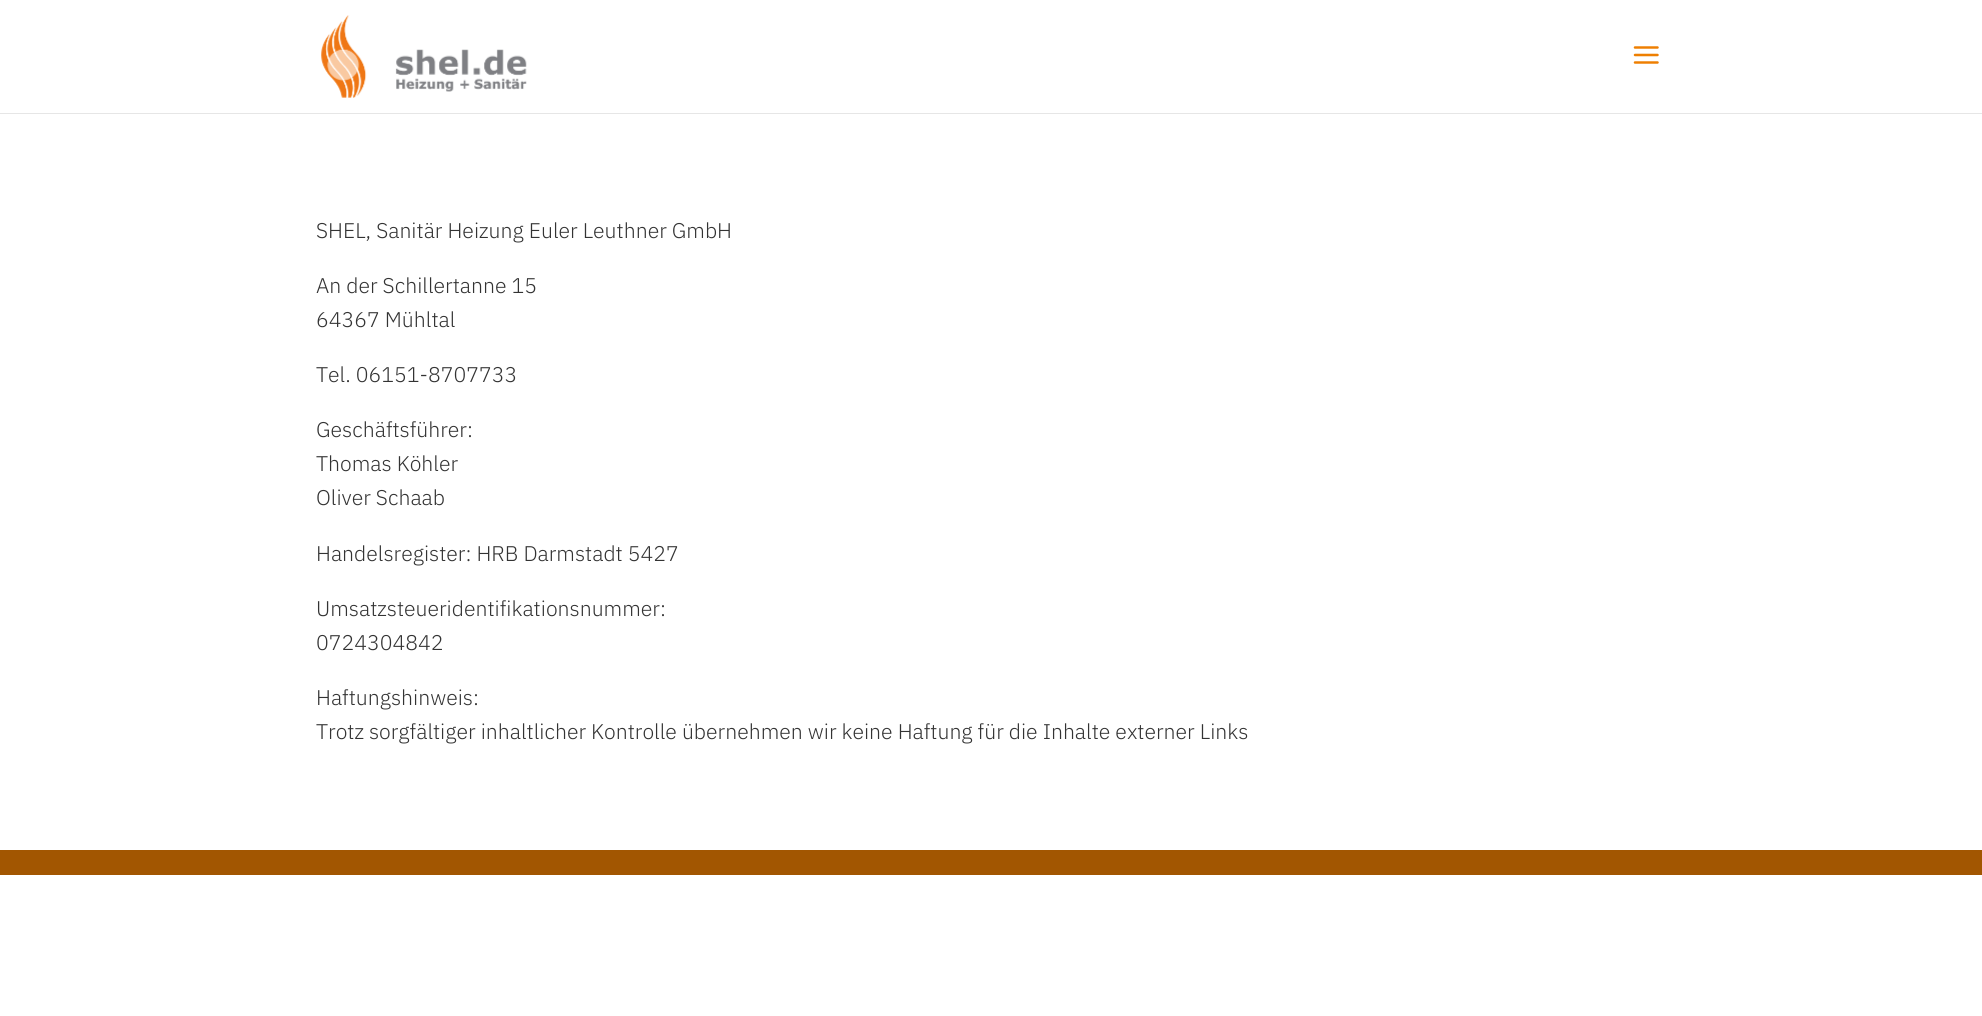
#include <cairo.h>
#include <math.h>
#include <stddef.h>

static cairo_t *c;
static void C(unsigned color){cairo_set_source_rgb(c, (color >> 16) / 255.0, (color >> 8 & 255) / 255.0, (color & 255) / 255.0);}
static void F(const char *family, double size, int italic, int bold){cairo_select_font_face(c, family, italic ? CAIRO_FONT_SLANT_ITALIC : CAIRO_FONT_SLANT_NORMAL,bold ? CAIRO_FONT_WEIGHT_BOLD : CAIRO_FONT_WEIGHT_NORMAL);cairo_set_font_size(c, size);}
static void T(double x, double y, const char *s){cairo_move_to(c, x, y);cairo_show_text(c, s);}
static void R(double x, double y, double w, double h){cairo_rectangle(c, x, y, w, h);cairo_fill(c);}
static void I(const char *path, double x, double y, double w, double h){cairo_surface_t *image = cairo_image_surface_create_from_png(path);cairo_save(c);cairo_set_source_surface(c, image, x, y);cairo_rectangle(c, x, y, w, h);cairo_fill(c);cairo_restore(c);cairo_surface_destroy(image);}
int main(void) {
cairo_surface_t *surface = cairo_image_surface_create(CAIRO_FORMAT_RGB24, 1982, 1016);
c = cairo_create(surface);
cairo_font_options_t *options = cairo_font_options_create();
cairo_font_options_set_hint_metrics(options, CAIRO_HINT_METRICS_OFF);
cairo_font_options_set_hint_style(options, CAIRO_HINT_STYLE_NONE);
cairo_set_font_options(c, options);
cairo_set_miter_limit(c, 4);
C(0xffffff);
cairo_paint(c);
C(0xe6e6e6);
cairo_new_path(c);
cairo_move_to(c,0,112);
cairo_line_to(c,0,114);
cairo_line_to(c,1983,114);
cairo_line_to(c,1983,1);
cairo_line_to(c,1982,1);
cairo_line_to(c,1982,112);
cairo_close_path(c);
cairo_fill(c);
C(0xffffff);
R(0,112,1982,1);
I("1.png",321,15,206,83);
I("2.png",1633,46,26,18);
F("IBM Plex Sans Light",21.25,0,0);
C(0x333333);
T(316,238,"SHEL, Sanitär Heizung Euler Leuthner GmbH");
T(316,293,"An der Schillertanne 15");
T(316,327,"64367 Mühltal");
T(316,382,"Tel. 06151-8707733");
T(316,437,"Geschäftsführer:");
T(316,471,"Thomas Köhler");
T(316,505,"Oliver Schaab");
T(316,561,"Handelsregister: HRB Darmstadt 5427");
T(316,616,"Umsatzsteueridentifikationsnummer:");
T(316,650,"0724304842");
T(316,705,"Haftungshinweis:");
T(316,739,"Trotz sorgfältiger inhaltlicher Kontrolle übernehmen wir keine Haftung für die Inhalte externer Links");
C(0xa25601);
R(0,850,1982,25);
cairo_surface_write_to_png(surface, "o.png");
cairo_font_options_destroy(options);
cairo_destroy(c);
cairo_surface_destroy(surface);
return 0;
}
